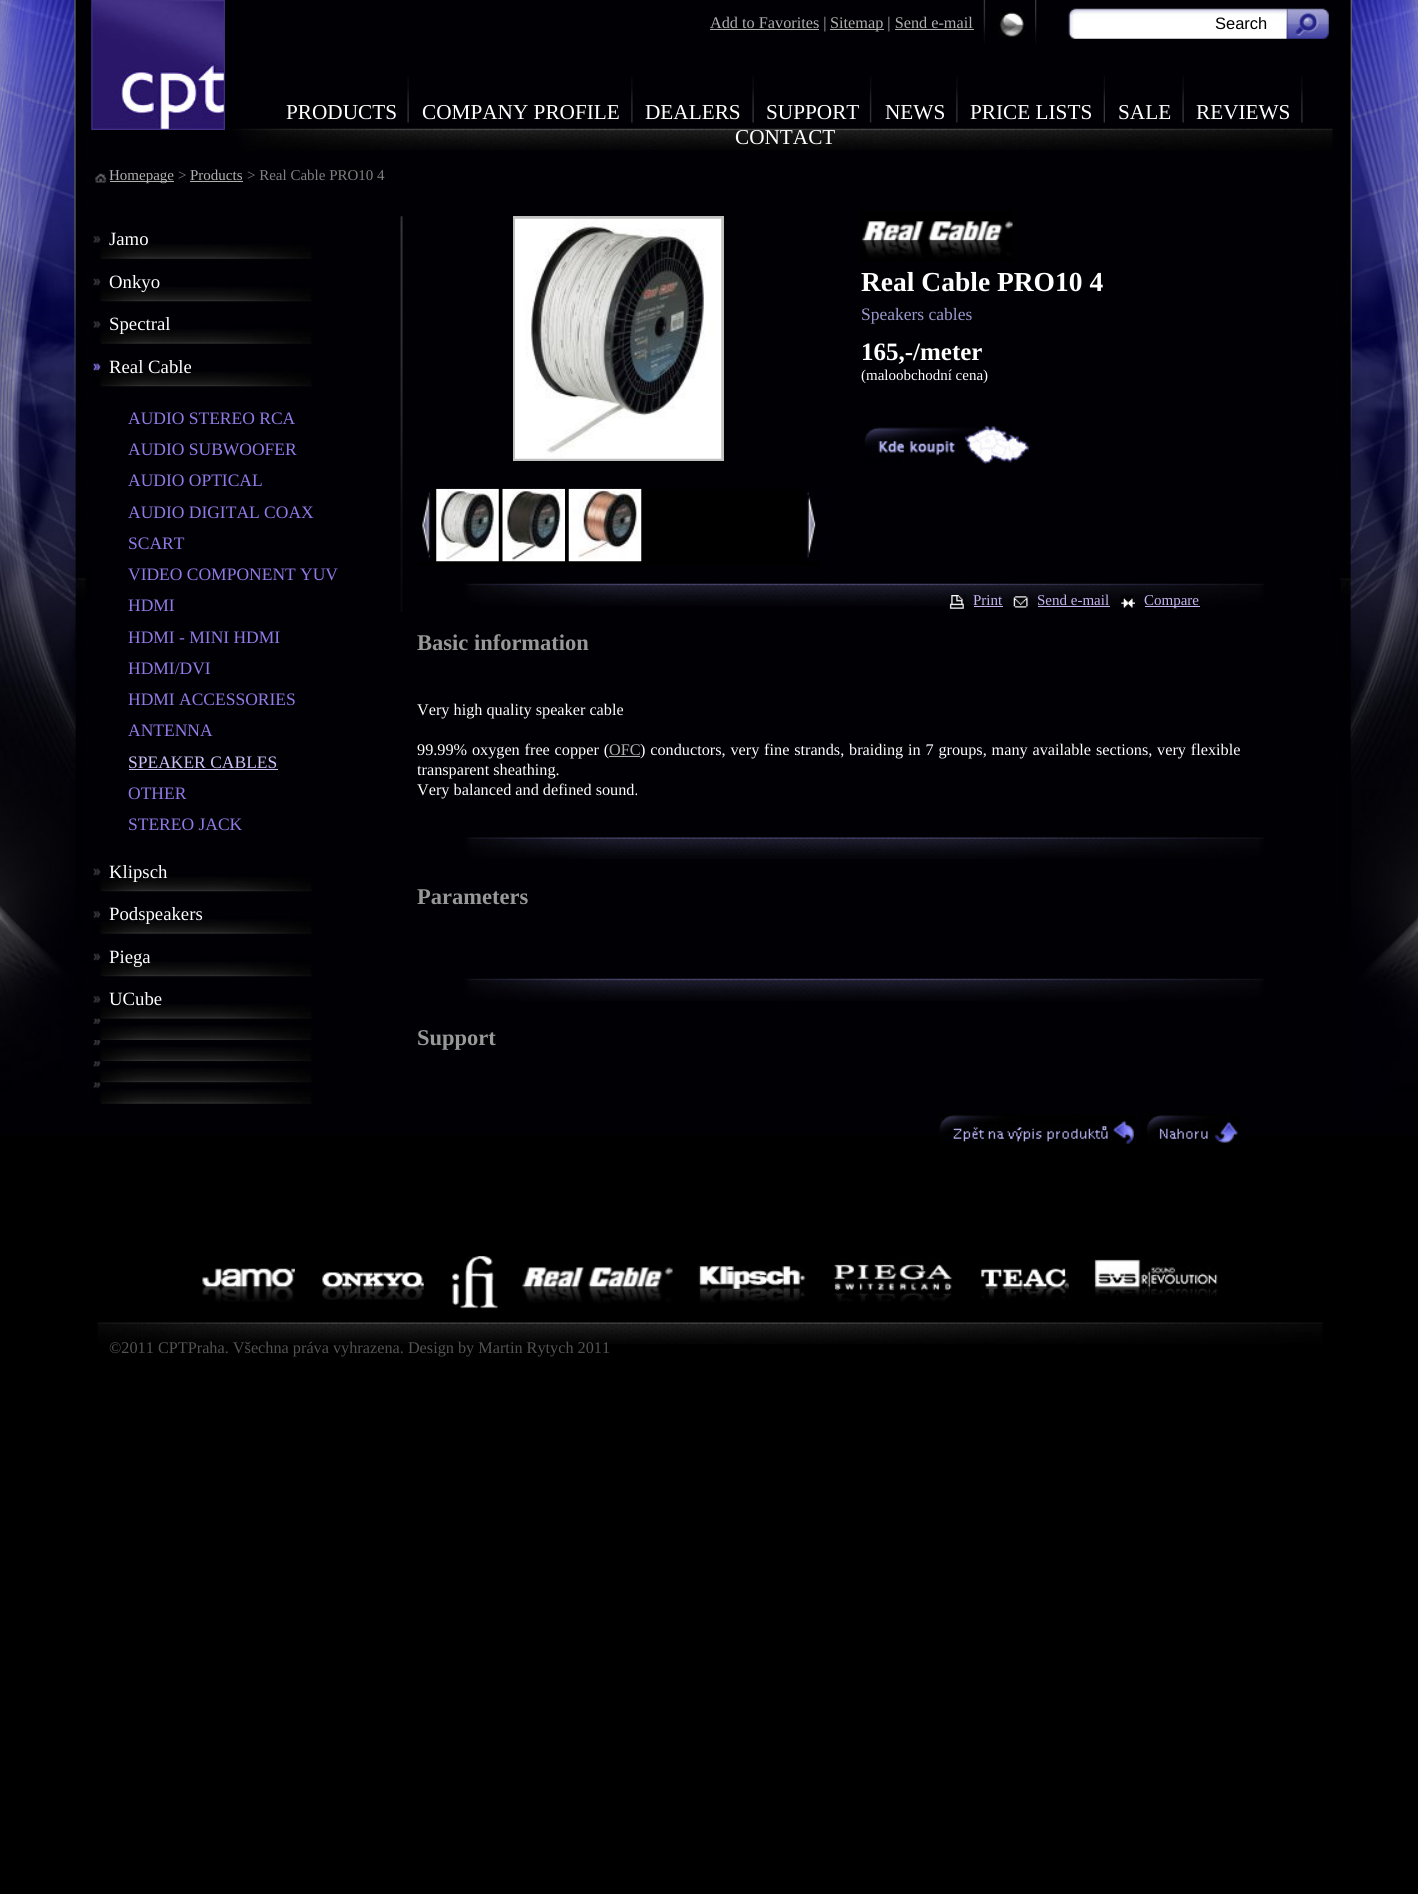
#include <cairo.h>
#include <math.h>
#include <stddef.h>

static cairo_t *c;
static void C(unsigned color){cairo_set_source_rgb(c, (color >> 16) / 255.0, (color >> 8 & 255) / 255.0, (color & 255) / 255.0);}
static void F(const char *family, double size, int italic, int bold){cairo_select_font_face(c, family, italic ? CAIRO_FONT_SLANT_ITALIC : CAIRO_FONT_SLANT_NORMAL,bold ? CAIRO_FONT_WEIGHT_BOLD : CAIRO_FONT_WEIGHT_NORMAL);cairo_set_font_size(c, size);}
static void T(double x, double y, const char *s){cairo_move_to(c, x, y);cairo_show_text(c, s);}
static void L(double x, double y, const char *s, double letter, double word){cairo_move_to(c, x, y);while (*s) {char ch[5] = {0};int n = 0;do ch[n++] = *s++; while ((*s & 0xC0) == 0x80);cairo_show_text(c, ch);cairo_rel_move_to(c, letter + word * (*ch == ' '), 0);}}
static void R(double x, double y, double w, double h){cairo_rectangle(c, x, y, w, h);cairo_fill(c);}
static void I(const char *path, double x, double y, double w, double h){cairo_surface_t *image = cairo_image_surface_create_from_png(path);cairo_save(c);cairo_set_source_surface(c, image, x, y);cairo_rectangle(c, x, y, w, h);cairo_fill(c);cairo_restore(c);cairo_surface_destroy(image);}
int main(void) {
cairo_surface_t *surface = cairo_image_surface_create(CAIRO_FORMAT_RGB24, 1418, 1894);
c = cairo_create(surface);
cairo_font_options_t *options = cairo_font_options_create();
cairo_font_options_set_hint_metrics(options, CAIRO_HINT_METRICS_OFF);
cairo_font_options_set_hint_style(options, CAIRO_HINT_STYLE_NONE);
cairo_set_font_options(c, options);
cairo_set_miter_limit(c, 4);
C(0x000000);
cairo_paint(c);
I("1.png",0,0,1418,1135);
I("2.png",91,0,134,130);
I("3.png",983,0,3,44);
C(0xb0b0b0);
R(710,29,109,1);
F("Liberation Serif",16.25,0,0);
T(710,28,"Add to Favorites |");
R(830,29,54,1);
T(830,28,"Sitemap | Send e-mail");
R(895,29,79,1);
I("4.png",1035,0,2,44);
I("5.png",999,12,26,25);
I("6.png",1068,8,220,31);
F("Liberation Sans",16.5,0,0);
C(0x000000);
T(1215,29,"Search");
I("7.png",1287,8,42,31);
I("8.png",233,128,1100,22);
F("Liberation Serif",21.25,0,0);
C(0xffffff);
T(286,119,"PRODUCTS");
I("9.png",407,76,2,47);
T(422,119,"COMPANY PROFILE");
I("10.png",631,77,2,46);
T(645,119,"DEALERS");
I("9.png",752,76,2,47);
T(766,119,"SUPPORT");
I("11.png",869,76,3,47);
T(885,119,"NEWS");
I("10.png",956,77,2,46);
T(970,119,"PRICE LISTS");
I("12.png",1103,76,2,47);
T(1118,119,"SALE");
I("9.png",1182,76,2,47);
T(1196,119,"REVIEWS");
I("10.png",1301,77,2,46);
T(735,144,"CONTACT");
I("13.png",95,173,12,10);
C(0xb0b0b0);
R(110,181,64,1);
F("Liberation Serif",15,0,0);
T(109,180,"Homepage");
C(0x808080);
T(178,180,">");
C(0xb0b0b0);
T(190,180,"Products");
R(190,181,53,1);
C(0x808080);
T(247,180,"> Real Cable PRO10 4");
I("14.png",93,236,219,23);
F("Liberation Serif",18.75,0,0);
C(0xffffff);
T(109,245,"Jamo");
I("15.png",93,278,219,24);
T(109,288,"Onkyo");
I("14.png",93,321,219,23);
T(109,330,"Spectral");
I("16.png",91,359,221,28);
T(109,373,"Real Cable");
F("Liberation Serif",17.5,0,0);
C(0x927ae6);
T(128,424,"AUDIO STEREO RCA");
T(128,455,"AUDIO SUBWOOFER");
T(128,486,"AUDIO OPTICAL");
T(128,518,"AUDIO DIGITAL COAX");
T(128,549,"SCART");
T(128,580,"VIDEO COMPONENT YUV");
T(128,611,"HDMI");
T(128,643,"HDMI - MINI HDMI");
T(128,674,"HDMI/DVI");
T(128,705,"HDMI ACCESSORIES");
T(128,736,"ANTENNA");
C(0xccc0f6);
T(128,768,"SPEAKER CABLES");
R(129,769,149,1);
C(0x927ae6);
T(128,799,"OTHER");
T(128,830,"STEREO JACK");
I("15.png",93,868,219,24);
F("Liberation Serif",18.75,0,0);
C(0xffffff);
T(109,878,"Klipsch");
I("14.png",93,911,219,23);
T(109,920,"Podspeakers");
I("15.png",93,953,219,24);
T(109,963,"Piega");
I("14.png",93,996,219,23);
T(109,1005,"UCube");
I("17.png",93,1018,219,22);
I("18.png",93,1040,219,22);
I("19.png",93,1061,219,22);
I("20.png",93,1082,219,22);
I("21.png",400,216,3,396);
cairo_rectangle(c,514.5,217.5,208,242);
C(0xc0c0c0);
cairo_set_line_width(c,3);
cairo_stroke(c);
I("22.png",515,218,207,241);
I("23.png",861,210,152,52);
F("Liberation Serif",27.5,0,1);
C(0xffffff);
T(861,291,"Real Cable PRO10 4");
F("Liberation Serif",17.5,0,0);
C(0x9999cd);
T(861,320,"Speakers cables");
F("Liberation Serif",25,0,1);
C(0xffffff);
T(861,360,"165,-/meter");
F("Liberation Serif",15,0,0);
T(861,380,"(maloobchodní cena)");
I("24.png",864,424,167,40);
C(0x000000);
R(418,489,402,77);
I("25.png",418,489,15,72);
I("26.png",436,488,63,74);
I("27.png",502,488,63,74);
I("28.png",568,488,74,74);
I("29.png",805,489,15,72);
I("30.png",465,583,799,23);
I("31.png",949,595,17,14);
C(0xc7b5f1);
T(973,605,"Print");
R(974,606,29,1);
I("32.png",1013,595,16,14);
T(1037,605,"Send e-mail");
R(1038,606,72,1);
I("33.png",1120,595,15,14);
R(1145,606,55,1);
T(1144,605,"Compare");
F("Liberation Serif",22.5,0,1);
C(0x989898);
T(417,650,"Basic information");
F("Liberation Serif",16.25,0,0);
C(0xffffff);
T(417,715,"Very high quality speaker cable");
L(417,755,"99.99% oxygen free copper (",0,.75);
C(0xb0b0b0);
T(609,755,"OFC");
R(609,756,31,1);
C(0xffffff);
L(640,755,") conductors, very fine strands, braiding in 7 groups, many available sections, very flexible",0,.75);
T(417,775,"transparent sheathing.");
T(417,795,"Very balanced and defined sound.");
I("34.png",466,836,798,23);
F("Liberation Serif",22.5,0,1);
C(0x989898);
T(417,904,"Parameters");
I("35.png",465,978,799,23);
T(417,1045,"Support");
I("36.png",939,1114,197,30);
I("37.png",1142,1114,99,30);
I("38.png",202,1268,93,34);
I("39.png",322,1272,102,28);
I("40.png",452,1256,46,53);
I("41.png",521,1267,152,36);
I("42.png",698,1266,108,37);
I("43.png",833,1259,120,43);
I("44.png",981,1268,88,31);
I("45.png",1094,1258,124,38);
I("46.png",97,1322,1226,22);
F("Liberation Serif",16.25,0,0);
C(0x535353);
T(109,1353,"©2011 CPTPraha. Všechna práva vyhrazena. Design by Martin Rytych 2011");
cairo_surface_write_to_png(surface, "o.png");
cairo_font_options_destroy(options);
cairo_destroy(c);
cairo_surface_destroy(surface);
return 0;
}
